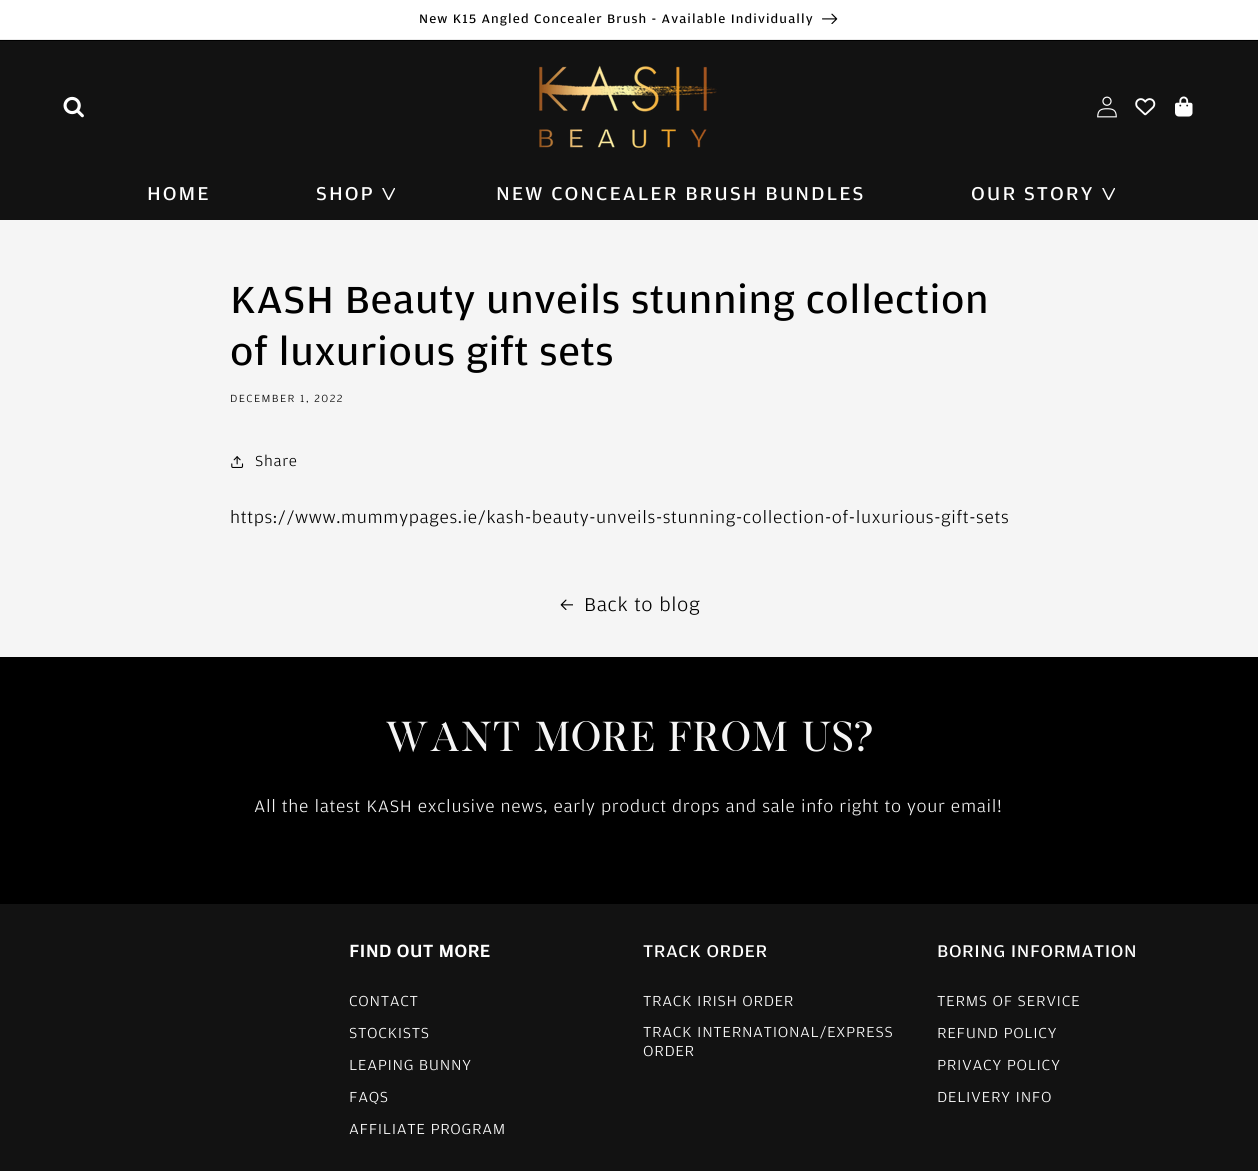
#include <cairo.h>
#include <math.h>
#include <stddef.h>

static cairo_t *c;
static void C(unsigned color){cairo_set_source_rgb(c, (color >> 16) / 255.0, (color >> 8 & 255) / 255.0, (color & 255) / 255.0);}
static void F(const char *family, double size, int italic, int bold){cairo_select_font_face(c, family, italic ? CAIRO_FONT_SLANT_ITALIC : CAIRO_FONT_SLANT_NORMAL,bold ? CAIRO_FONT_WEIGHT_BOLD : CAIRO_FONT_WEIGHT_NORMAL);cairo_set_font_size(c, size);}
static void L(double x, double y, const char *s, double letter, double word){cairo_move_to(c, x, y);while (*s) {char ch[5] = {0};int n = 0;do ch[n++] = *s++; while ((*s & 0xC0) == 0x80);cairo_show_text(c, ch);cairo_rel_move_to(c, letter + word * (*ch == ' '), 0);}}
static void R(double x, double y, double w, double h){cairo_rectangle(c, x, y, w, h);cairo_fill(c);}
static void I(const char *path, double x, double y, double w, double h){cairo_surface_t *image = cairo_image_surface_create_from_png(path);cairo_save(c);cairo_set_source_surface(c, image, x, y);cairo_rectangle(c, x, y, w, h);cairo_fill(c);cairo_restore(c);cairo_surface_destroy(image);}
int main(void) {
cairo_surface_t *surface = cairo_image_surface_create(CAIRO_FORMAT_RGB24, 1258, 1171);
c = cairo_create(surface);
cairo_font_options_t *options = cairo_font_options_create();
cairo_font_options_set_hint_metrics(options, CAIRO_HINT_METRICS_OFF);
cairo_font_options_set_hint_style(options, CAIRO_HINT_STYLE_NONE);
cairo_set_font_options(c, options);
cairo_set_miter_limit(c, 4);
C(0xf5f5f5);
cairo_paint(c);
C(0x000000);
R(0,40,1258,1);
C(0xffffff);
R(0,0,1258,39);
C(0xebebeb);
R(0,39,1258,1);
F("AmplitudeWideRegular",13,0,0);
C(0x000000);
L(419,23,"New K15 Angled Concealer Brush - Available Individually",1.1,0);
I("1.png",822,13,16,11);
C(0x121212);
R(0,41,1258,179);
I("2.png",63,96,21,22);
I("3.png",539,65,178,83);
I("4.png",1097,96,20,22);
I("5.png",1135,98,21,18);
I("6.png",1175,96,18,21);
F("AmplitudeWideRegular",19.75,0,0);
C(0xffffff);
L(147,200,"HOME",2,0);
L(316,200,"SHOP",2,0);
I("7.png",382,188,13,12);
L(496,200,"NEW CONCEALER BRUSH BUNDLES",2,0);
L(971,200,"OUR STORY",2,0);
I("7.png",1102,188,13,12);
F("AmplitudeWideRegular",40,0,0);
C(0x000000);
L(230,313,"KASH Beauty unveils stunning collection",.6,0);
L(230,365,"of luxurious gift sets",.6,0);
F("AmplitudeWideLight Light",11,0,0);
L(230,402,"DECEMBER 1, 2022",1.4,0);
I("8.png",231,456,13,12);
F("AmplitudeWideLight Light",15.4,0,0);
L(255,466,"Share",.65,0);
F("AmplitudeWideLight Light",17.6,0,0);
L(230,523,"https://www.mummypages.ie/kash-beauty-unveils-stunning-collection-of-luxurious-gift-sets",.65,0);
I("9.png",560,599,13,11);
F("AmplitudeWideLight Light",19.75,0,0);
L(584,611,"Back to blog",.65,0);
R(0,657,1258,247);
F("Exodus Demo",40,0,0);
C(0xf5f5f5);
L(385,751,"WANT MORE FROM US?",.6,0);
F("AmplitudeWideLight Light",17.6,0,0);
L(254,812,"All the latest KASH exclusive news, early product drops and sale info right to your email!",.65,0);
C(0x121212);
R(0,904,1258,267);
F("AmplitudeWideRegular",18,0,1);
C(0xffffff);
L(349,957,"FIND OUT MORE",.6,0);
F("AmplitudeWideLight Light",15.4,0,0);
L(349,1006,"CONTACT",.65,0);
L(349,1038,"STOCKISTS",.65,0);
L(349,1070,"LEAPING BUNNY",.65,0);
L(349,1102,"FAQS",.65,0);
L(349,1134,"AFFILIATE PROGRAM",.65,0);
F("AmplitudeWideRegular",18,0,0);
L(643,957,"TRACK ORDER",.6,0);
F("AmplitudeWideLight Light",15.4,0,0);
L(643,1006,"TRACK IRISH ORDER",.65,0);
L(643,1037,"TRACK INTERNATIONAL/EXPRESS",.65,0);
L(643,1056,"ORDER",.65,0);
F("AmplitudeWideRegular",18,0,0);
L(937,957,"BORING INFORMATION",.6,0);
F("AmplitudeWideLight Light",15.4,0,0);
L(937,1006,"TERMS OF SERVICE",.65,0);
L(937,1038,"REFUND POLICY",.65,0);
L(937,1070,"PRIVACY POLICY",.65,0);
L(937,1102,"DELIVERY INFO",.65,0);
cairo_surface_write_to_png(surface, "o.png");
cairo_font_options_destroy(options);
cairo_destroy(c);
cairo_surface_destroy(surface);
return 0;
}
